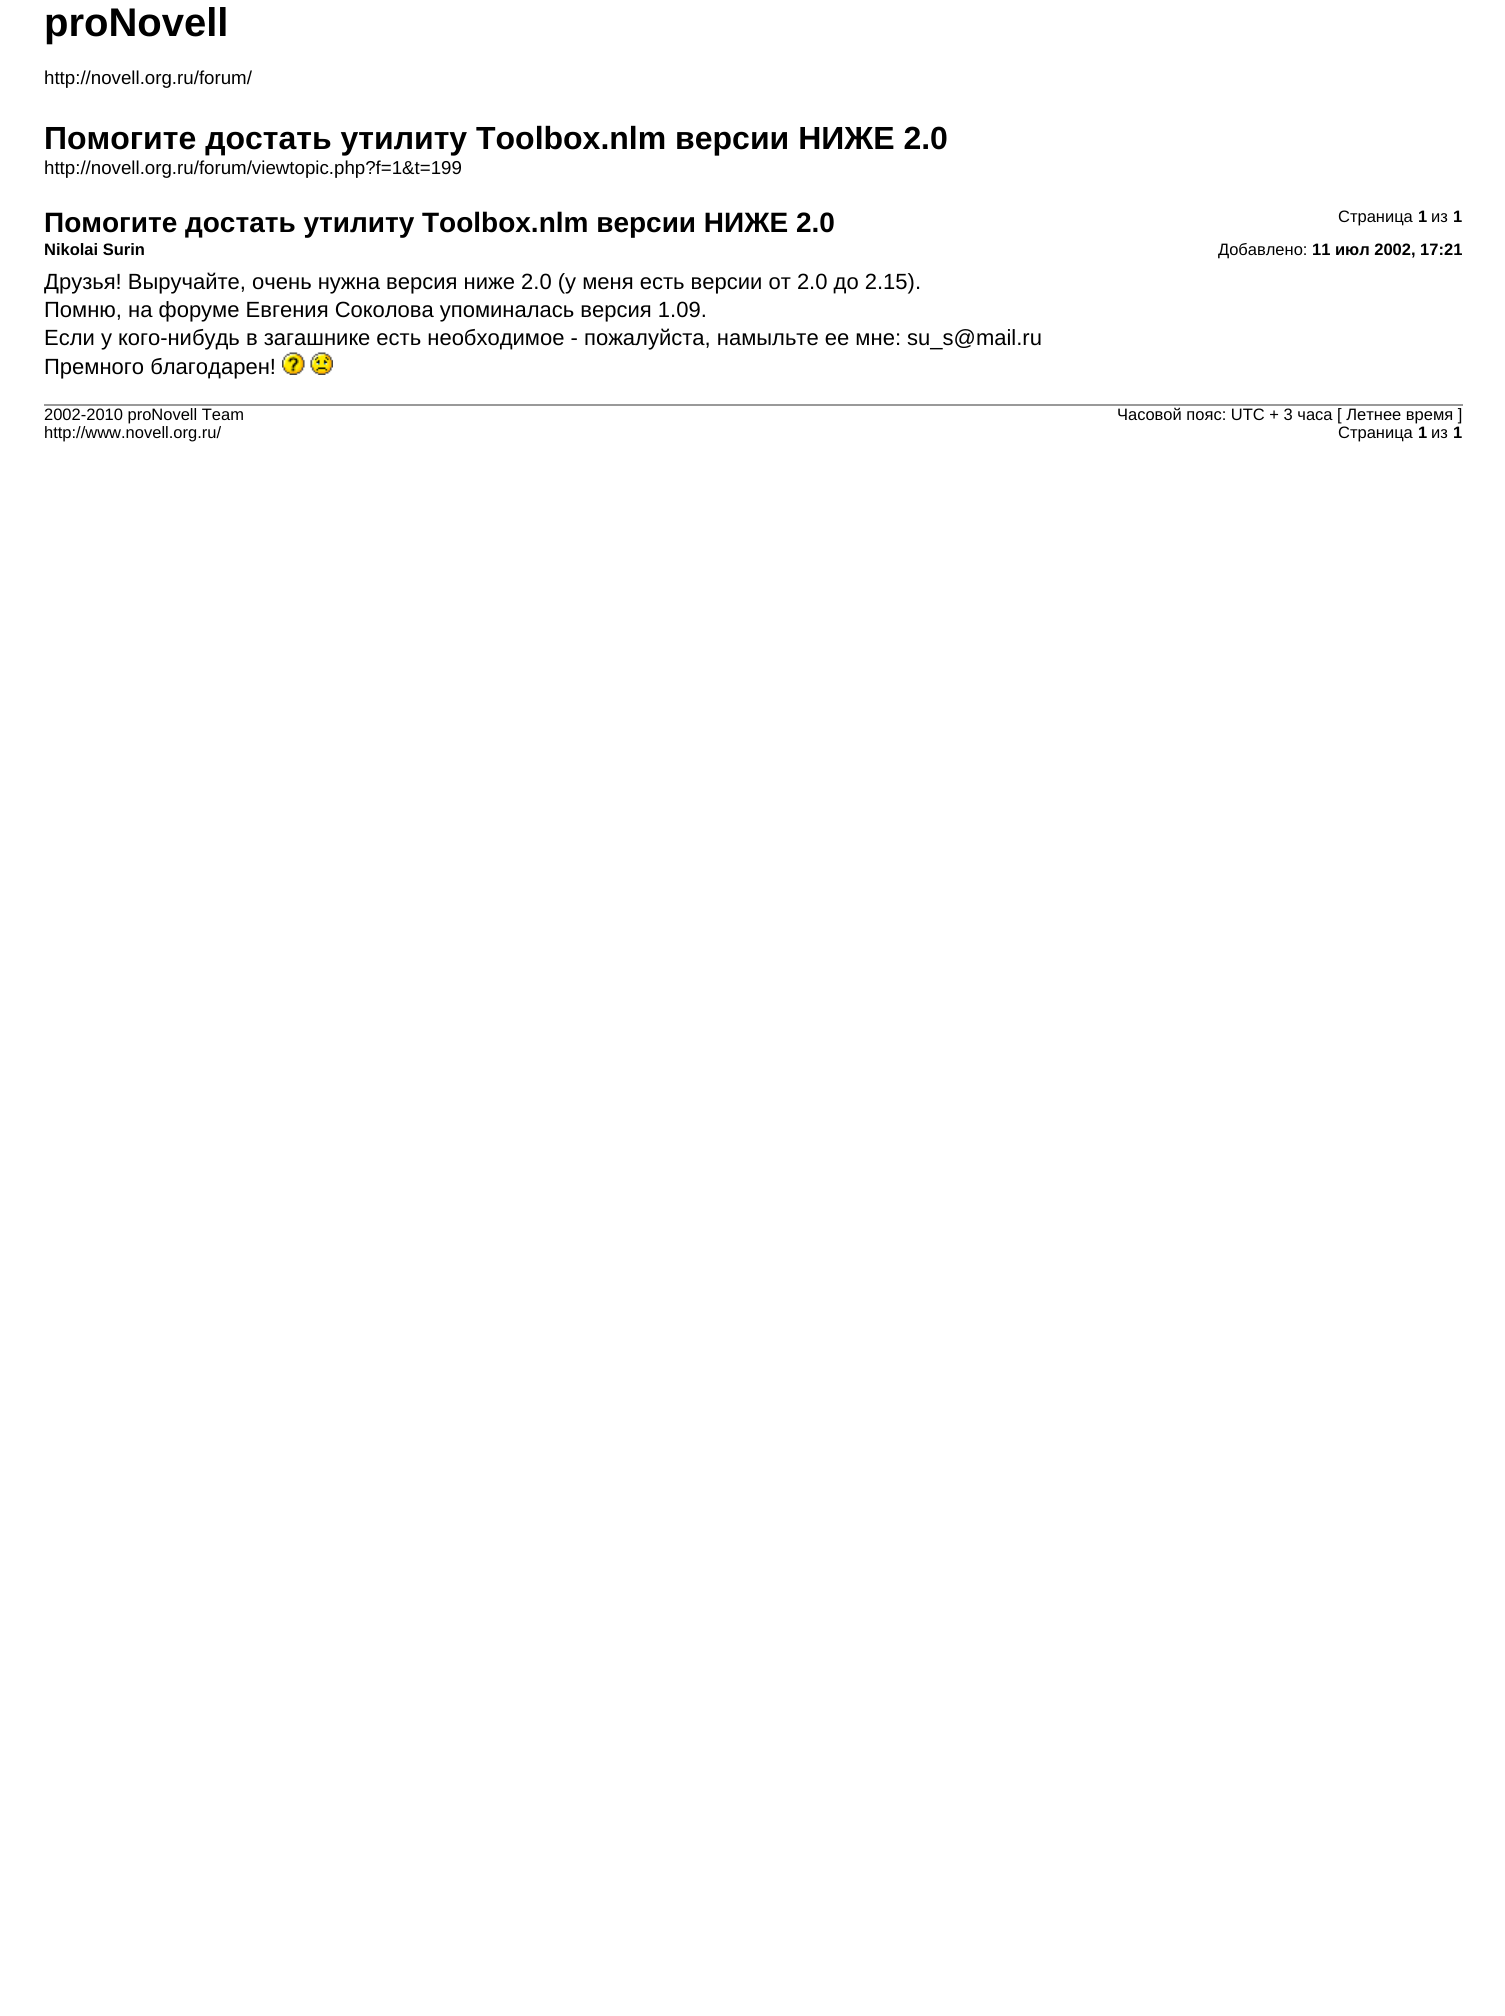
#include <cairo.h>
#include <math.h>
#include <stddef.h>

static cairo_t *c;
static void C(unsigned color){cairo_set_source_rgb(c, (color >> 16) / 255.0, (color >> 8 & 255) / 255.0, (color & 255) / 255.0);}
static void F(const char *family, double size, int italic, int bold){cairo_select_font_face(c, family, italic ? CAIRO_FONT_SLANT_ITALIC : CAIRO_FONT_SLANT_NORMAL,bold ? CAIRO_FONT_WEIGHT_BOLD : CAIRO_FONT_WEIGHT_NORMAL);cairo_set_font_size(c, size);}
static void T(double x, double y, const char *s){cairo_move_to(c, x, y);cairo_show_text(c, s);}
static void R(double x, double y, double w, double h){cairo_rectangle(c, x, y, w, h);cairo_fill(c);}
static void I(const char *path, double x, double y, double w, double h){cairo_surface_t *image = cairo_image_surface_create_from_png(path);cairo_save(c);cairo_set_source_surface(c, image, x, y);cairo_rectangle(c, x, y, w, h);cairo_fill(c);cairo_restore(c);cairo_surface_destroy(image);}
int main(void) {
cairo_surface_t *surface = cairo_image_surface_create(CAIRO_FORMAT_RGB24, 1505, 2016);
c = cairo_create(surface);
cairo_font_options_t *options = cairo_font_options_create();
cairo_font_options_set_hint_metrics(options, CAIRO_HINT_METRICS_OFF);
cairo_font_options_set_hint_style(options, CAIRO_HINT_STYLE_NONE);
cairo_set_font_options(c, options);
cairo_set_miter_limit(c, 4);
C(0xffffff);
cairo_paint(c);
F("Liberation Sans",40,0,1);
C(0x000000);
T(44,36,"proNovell");
F("Liberation Sans",18.7,0,0);
T(44,84,"http://novell.org.ru/forum/");
F("Liberation Sans",32,0,1);
T(44,149,"Помогите достать утилиту Toolbox.nlm версии НИЖЕ 2.0");
F("Liberation Sans",18.7,0,0);
T(44,174,"http://novell.org.ru/forum/viewtopic.php?f=1&t=199");
F("Liberation Sans",16.5,0,0);
T(1338,222,"Страница");
F("Liberation Sans",16.5,0,1);
T(1418,222,"1");
F("Liberation Sans",16.5,0,0);
T(1431,222,"из");
F("Liberation Sans",16.5,0,1);
T(1453,222,"1");
F("Liberation Sans",28,0,1);
T(44,232,"Помогите достать утилиту Toolbox.nlm версии НИЖЕ 2.0");
F("Liberation Sans",16.5,0,1);
T(44,255,"Nikolai Surin");
F("Liberation Sans",16.5,0,0);
T(1218,255,"Добавлено:");
F("Liberation Sans",16.5,0,1);
T(1312,255,"11 июл 2002, 17:21");
F("Liberation Sans",22,0,0);
T(44,289,"Друзья! Выручайте, очень нужна версия ниже 2.0 (у меня есть версии от 2.0 до 2.15).");
T(44,317,"Помню, на форуме Евгения Соколова упоминалась версия 1.09.");
T(44,345,"Если у кого-нибудь в загашнике есть необходимое - пожалуйста, намыльте ее мне: su_s@mail.ru");
T(44,374,"Премного благодарен!");
I("1.png",282,352,23,23);
I("2.png",310,352,23,23);
C(0x999999);
R(44,404,1419,2);
F("Liberation Sans",16.5,0,0);
C(0x000000);
T(44,420,"2002-2010 proNovell Team");
T(44,438,"http://www.novell.org.ru/");
T(1117,420,"Часовой пояс: UTC + 3 часа [ Летнее время ]");
T(1338,438,"Страница");
F("Liberation Sans",16.5,0,1);
T(1418,438,"1");
F("Liberation Sans",16.5,0,0);
T(1431,438,"из");
F("Liberation Sans",16.5,0,1);
T(1453,438,"1");
cairo_surface_write_to_png(surface, "o.png");
cairo_font_options_destroy(options);
cairo_destroy(c);
cairo_surface_destroy(surface);
return 0;
}
